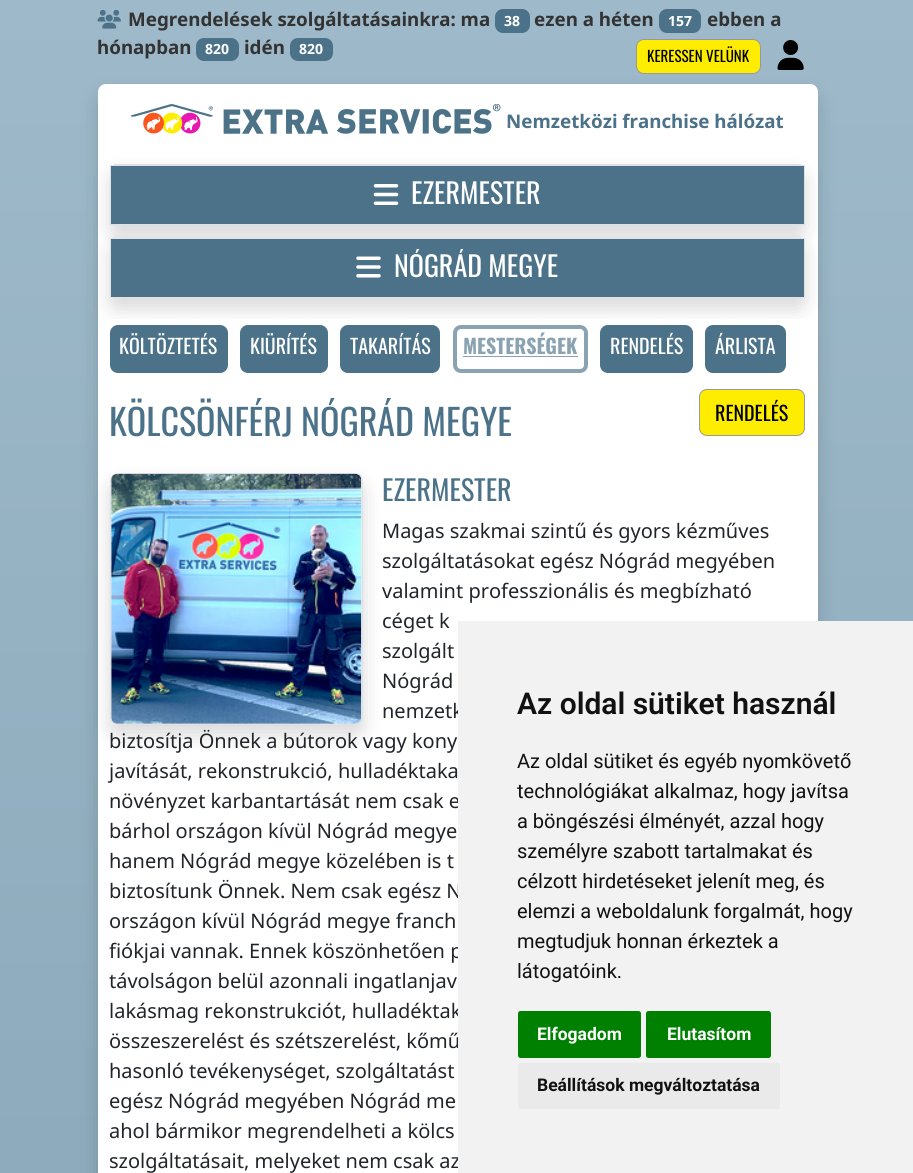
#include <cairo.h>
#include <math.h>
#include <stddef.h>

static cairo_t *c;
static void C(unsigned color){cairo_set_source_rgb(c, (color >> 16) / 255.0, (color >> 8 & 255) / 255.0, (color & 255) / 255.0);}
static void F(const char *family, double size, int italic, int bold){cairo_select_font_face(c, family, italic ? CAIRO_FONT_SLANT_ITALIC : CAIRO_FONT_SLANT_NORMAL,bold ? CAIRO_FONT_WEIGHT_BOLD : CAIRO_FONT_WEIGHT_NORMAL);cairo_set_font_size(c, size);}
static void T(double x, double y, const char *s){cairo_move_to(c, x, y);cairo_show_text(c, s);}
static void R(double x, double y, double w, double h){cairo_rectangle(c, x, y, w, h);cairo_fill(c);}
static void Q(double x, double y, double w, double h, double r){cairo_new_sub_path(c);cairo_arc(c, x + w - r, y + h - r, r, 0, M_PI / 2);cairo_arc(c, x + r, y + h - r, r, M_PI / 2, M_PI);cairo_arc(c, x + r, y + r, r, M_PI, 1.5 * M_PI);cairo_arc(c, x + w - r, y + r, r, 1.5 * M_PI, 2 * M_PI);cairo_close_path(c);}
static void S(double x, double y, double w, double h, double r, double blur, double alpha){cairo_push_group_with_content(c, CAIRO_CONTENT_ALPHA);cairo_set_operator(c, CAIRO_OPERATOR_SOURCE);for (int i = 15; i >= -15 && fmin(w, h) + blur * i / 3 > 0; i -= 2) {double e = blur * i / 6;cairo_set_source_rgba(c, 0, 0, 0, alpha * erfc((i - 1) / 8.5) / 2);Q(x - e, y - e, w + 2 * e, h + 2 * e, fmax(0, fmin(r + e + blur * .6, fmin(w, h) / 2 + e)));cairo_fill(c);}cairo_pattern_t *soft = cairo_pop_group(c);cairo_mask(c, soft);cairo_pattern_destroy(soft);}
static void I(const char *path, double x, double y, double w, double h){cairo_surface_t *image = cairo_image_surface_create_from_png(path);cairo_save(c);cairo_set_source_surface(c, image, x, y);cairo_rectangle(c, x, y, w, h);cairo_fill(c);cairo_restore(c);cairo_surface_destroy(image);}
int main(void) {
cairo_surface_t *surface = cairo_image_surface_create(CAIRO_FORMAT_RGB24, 913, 1173);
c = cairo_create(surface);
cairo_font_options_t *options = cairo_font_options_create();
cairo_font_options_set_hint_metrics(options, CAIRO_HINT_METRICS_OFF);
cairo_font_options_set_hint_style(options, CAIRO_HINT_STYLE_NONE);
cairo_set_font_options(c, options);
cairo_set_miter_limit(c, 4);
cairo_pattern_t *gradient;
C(0xffffff);
cairo_paint(c);
gradient = cairo_pattern_create_linear(457,0,457,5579);
cairo_pattern_add_color_stop_rgba(gradient,0,0.62,0.729,0.792,1);
cairo_pattern_add_color_stop_rgba(gradient,1,0.294,0.447,0.537,1);
cairo_set_source(c,gradient);
cairo_pattern_destroy(gradient);
R(0,0,913,1173);
I("1.png",97,9,24,20);
F("Noto Sans",18.75,0,1);
C(0x333333);
T(128,26,"Megrendelések szolgáltatásainkra: ma");
C(0x4b7289);
Q(495,9,35,24,8);
cairo_fill(c);
F("Noto Sans",14,0,1);
C(0xffffff);
T(504,26,"38");
F("Noto Sans",18.75,0,1);
C(0x333333);
T(534,26,"ezen a héten");
C(0x4b7289);
Q(659,9,42,24,8);
cairo_fill(c);
F("Noto Sans",14,0,1);
C(0xffffff);
T(668,26,"157");
F("Noto Sans",18.75,0,1);
C(0x333333);
T(707,26,"ebben a");
T(97,54,"hónapban");
C(0x4b7289);
Q(196,38,43,23,8);
cairo_fill(c);
F("Noto Sans",14,0,1);
C(0xffffff);
T(205,54,"820");
F("Noto Sans",18.75,0,1);
C(0x333333);
T(244,54,"idén");
C(0x4b7289);
Q(290,38,43,23,8);
cairo_fill(c);
F("Noto Sans",14,0,1);
C(0xffffff);
T(299,54,"820");
C(0x000000);
S(98,94,720,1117,8,10,.15);
C(0xffed00);
Q(636.5,39.5,124,34,7.5);
cairo_fill_preserve(c);
C(0x999999);
cairo_set_line_width(c,1);
cairo_stroke(c);
F("Oswald",15,0,0);
C(0x000000);
T(647,62,"KERESSEN VELÜNK");
I("2.png",777,40,27,30);
C(0xffffff);
cairo_new_path(c);
cairo_move_to(c,106,84);
cairo_line_to(c,810,84);
cairo_curve_to(c,814.5,84,818,87.5,818,92);
cairo_line_to(c,818,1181);
cairo_line_to(c,98,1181);
cairo_line_to(c,98,92);
cairo_curve_to(c,98,87.5,101.5,84,106,84);
cairo_close_path(c);
cairo_fill(c);
I("3.png",130,104,371,30);
F("Noto Sans",18.75,0,1);
C(0x4b7289);
T(506,128,"Nemzetközi franchise hálózat");
C(0x000000);
S(110,174,695,62,8,10,.15);
C(0xdee2e6);
R(114,164,687,1);
R(114,225,687,1);
C(0x000000);
S(110,246,695,63,8,10,.15);
C(0x4b7289);
cairo_rectangle(c,110.5,165.5,694,59);
cairo_fill_preserve(c);
C(0xdee2e6);
cairo_stroke(c);
I("4.png",373,184,26,21);
F("Oswald",28,0,0);
C(0xffffff);
T(411,204,"EZERMESTER");
C(0xdee2e6);
R(114,236,687,1);
R(114,298,687,1);
C(0x4b7289);
cairo_rectangle(c,110.5,238.5,694,59);
cairo_fill_preserve(c);
C(0xdee2e6);
cairo_stroke(c);
I("5.png",356,256,25,22);
cairo_save(c);
cairo_rectangle(c,121,249,673,37);
cairo_clip(c);
C(0xffffff);
T(394,277,"NÓGRÁD MEGYE");
cairo_restore(c);
C(0xffffff);
R(111,319,693,5);
C(0x4b7289);
Q(112,327,114,44,6);
cairo_fill_preserve(c);
cairo_set_line_width(c,4);
cairo_stroke(c);
F("Oswald",20,0,0);
C(0xffffff);
T(119,354,"KÖLTÖZTETÉS");
C(0x4b7289);
Q(242,327,84,44,6);
cairo_fill_preserve(c);
cairo_stroke(c);
C(0xffffff);
T(250,354,"KIÜRÍTÉS");
C(0x4b7289);
Q(342,327,96,44,6);
cairo_fill_preserve(c);
cairo_stroke(c);
C(0xffffff);
T(350,354,"TAKARÍTÁS");
Q(455,327,131,44,6);
C(0x8aa3b2);
cairo_stroke(c);
F("Oswald",20,0,1);
T(463,354,"MESTERSÉGEK");
R(463,356,115,1);
C(0x4b7289);
Q(602,327,89,44,6);
cairo_fill_preserve(c);
cairo_stroke(c);
F("Oswald",20,0,0);
C(0xffffff);
T(610,354,"RENDELÉS");
C(0x4b7289);
Q(707,327,77,44,6);
cairo_fill_preserve(c);
cairo_stroke(c);
C(0xffffff);
T(715,354,"ÁRLISTA");
F("Oswald",36,0,0);
C(0x4b7289);
T(109,436,"KÖLCSÖNFÉRJ NÓGRÁD MEGYE");
C(0xffed00);
Q(699.5,389.5,105,46,7.5);
cairo_fill_preserve(c);
C(0x999999);
cairo_set_line_width(c,1);
cairo_stroke(c);
F("Oswald",20,0,0);
C(0x000000);
T(715,421,"RENDELÉS");
C(0x000000);
S(110,483,253,252,8,10,.15);
Q(110.5,473.5,252,251,7.5);
C(0xdee2e6);
cairo_stroke(c);
I("6.png",111,473,251,251);
F("Oswald",28,0,0);
C(0x4b7289);
T(382,501,"EZERMESTER");
F("Noto Sans",20,0,0);
C(0x212529);
T(382,538,"Magas szakmai szintű és gyors kézműves");
T(382,568,"szolgáltatásokat egész Nógrád megyében");
T(382,598,"valamint professzionális és megbízható");
T(382,628,"céget k");
T(382,658,"szolgált");
T(382,688,"Nógrád");
T(382,718,"nemzetk");
T(109,748,"biztosítja Önnek a bútorok vagy kony");
T(109,778,"javítását, rekonstrukció, hulladéktaka");
T(109,808,"növényzet karbantartását nem csak e");
T(109,838,"bárhol országon kívül Nógrád megye");
T(109,868,"hanem Nógrád megye közelében is t");
T(109,898,"biztosítunk Önnek. Nem csak egész N");
T(109,928,"országon kívül Nógrád megye franch");
T(109,958,"fiókjai vannak. Ennek köszönhetően p");
T(109,988,"távolságon belül azonnali ingatlanjav");
T(109,1018,"lakásmag rekonstrukciót, hulladéktak");
T(109,1048,"összeszerelést és szétszerelést, kőmű");
T(109,1078,"hasonló tevékenységet, szolgáltatást");
T(109,1108,"egész Nógrád megyében Nógrád me");
T(109,1138,"ahol bármikor megrendelheti a kölcs");
T(109,1168,"szolgáltatásait, melyeket nem csak az");
C(0xf2f2f2);
R(458,621,455,552);
F("Roboto SemiBold",30,0,0);
C(0x111111);
T(517,714,"Az oldal sütiket használ");
F("Roboto",20,0,0);
T(517,768,"Az oldal sütiket és egyéb nyomkövető");
T(517,798,"technológiákat alkalmaz, hogy javítsa");
T(517,828,"a böngészési élményét, azzal hogy");
T(517,858,"személyre szabott tartalmakat és");
T(517,888,"célzott hirdetéseket jelenít meg, és");
T(517,918,"elemzi a weboldalunk forgalmát, hogy");
T(517,948,"megtudjuk honnan érkeztek a");
T(517,978,"látogatóink.");
C(0x008000);
Q(518,1011,123,47,2.5);
cairo_fill(c);
F("Roboto",17.5,0,1);
C(0xffffff);
T(537,1040,"Elfogadom");
C(0x008000);
Q(646,1011,125,47,2.5);
cairo_fill(c);
C(0xffffff);
T(667,1040,"Elutasítom");
C(0xeaeaea);
Q(518,1063,262,46,2.5);
cairo_fill(c);
C(0x111111);
T(537,1091,"Beállítások megváltoztatása");
cairo_surface_write_to_png(surface, "o.png");
cairo_font_options_destroy(options);
cairo_destroy(c);
cairo_surface_destroy(surface);
return 0;
}
